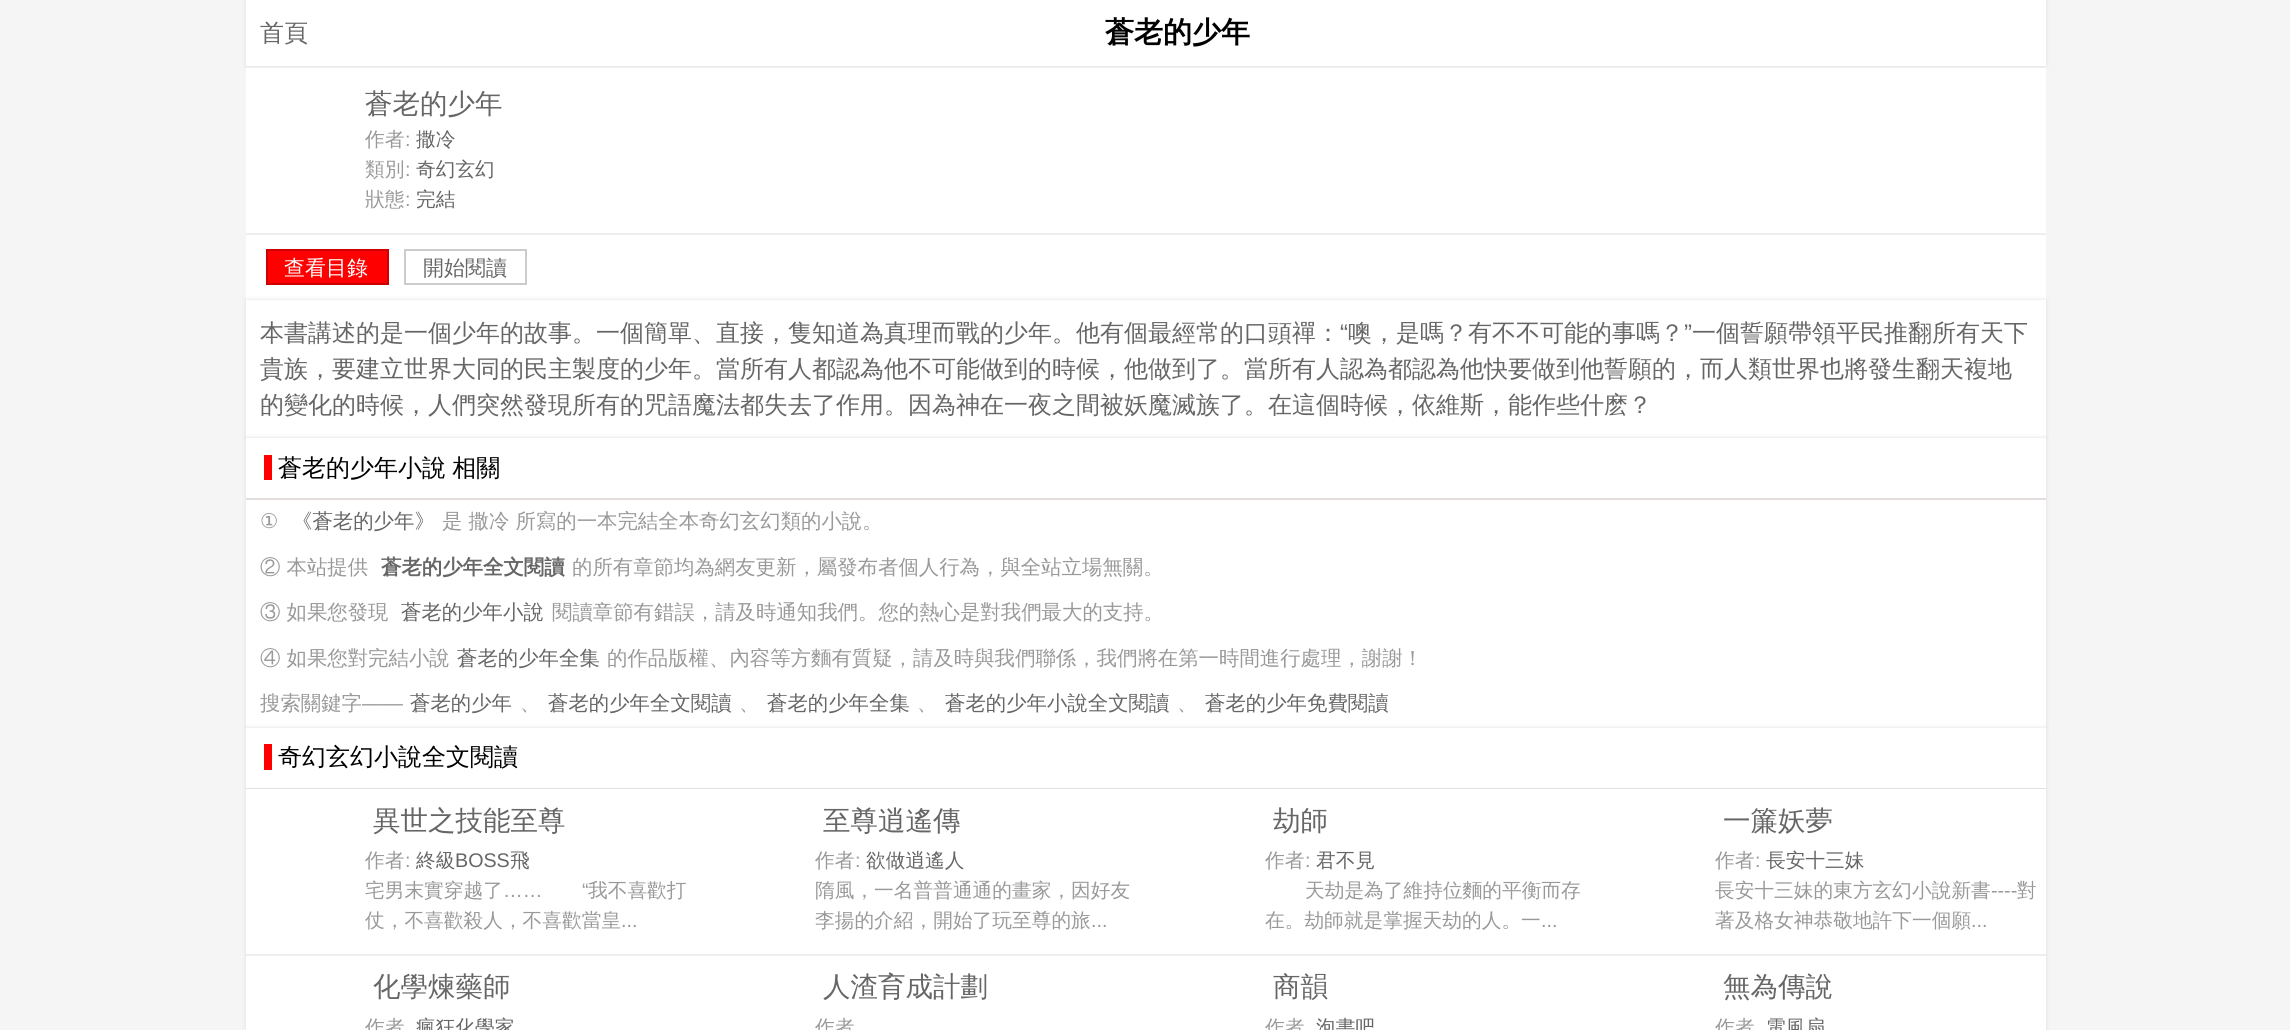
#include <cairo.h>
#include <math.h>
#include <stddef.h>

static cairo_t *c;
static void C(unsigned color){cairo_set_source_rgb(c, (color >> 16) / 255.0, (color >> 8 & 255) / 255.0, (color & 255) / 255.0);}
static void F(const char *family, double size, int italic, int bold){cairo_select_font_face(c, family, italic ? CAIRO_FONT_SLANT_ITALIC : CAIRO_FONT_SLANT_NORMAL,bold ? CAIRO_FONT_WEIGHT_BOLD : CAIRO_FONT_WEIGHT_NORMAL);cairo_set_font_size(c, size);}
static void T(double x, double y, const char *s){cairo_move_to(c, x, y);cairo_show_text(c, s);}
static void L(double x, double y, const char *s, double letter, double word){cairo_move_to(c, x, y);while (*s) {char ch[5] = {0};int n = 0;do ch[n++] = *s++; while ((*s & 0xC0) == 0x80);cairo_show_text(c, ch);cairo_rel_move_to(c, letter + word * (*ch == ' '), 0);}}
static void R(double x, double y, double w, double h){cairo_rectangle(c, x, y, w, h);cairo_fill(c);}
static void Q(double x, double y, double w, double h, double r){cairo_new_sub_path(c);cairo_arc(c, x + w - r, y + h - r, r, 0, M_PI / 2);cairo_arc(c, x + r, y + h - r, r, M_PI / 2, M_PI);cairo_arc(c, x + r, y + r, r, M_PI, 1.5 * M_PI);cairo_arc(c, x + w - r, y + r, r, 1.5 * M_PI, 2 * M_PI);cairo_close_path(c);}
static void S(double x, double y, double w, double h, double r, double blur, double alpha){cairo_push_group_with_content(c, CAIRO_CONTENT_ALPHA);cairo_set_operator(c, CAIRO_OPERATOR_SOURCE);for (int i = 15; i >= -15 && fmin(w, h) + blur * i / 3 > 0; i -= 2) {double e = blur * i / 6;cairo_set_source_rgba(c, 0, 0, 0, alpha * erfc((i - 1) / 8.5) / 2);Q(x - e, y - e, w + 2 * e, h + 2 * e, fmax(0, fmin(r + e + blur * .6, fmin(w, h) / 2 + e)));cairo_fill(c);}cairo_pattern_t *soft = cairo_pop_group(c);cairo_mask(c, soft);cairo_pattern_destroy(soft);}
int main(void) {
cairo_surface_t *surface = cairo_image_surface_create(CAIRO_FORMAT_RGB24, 2290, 1030);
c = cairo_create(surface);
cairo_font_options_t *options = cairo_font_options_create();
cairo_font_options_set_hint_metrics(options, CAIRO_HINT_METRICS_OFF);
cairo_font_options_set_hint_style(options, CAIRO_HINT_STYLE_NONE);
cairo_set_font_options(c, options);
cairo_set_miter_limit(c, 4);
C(0xf5f5f5);
cairo_paint(c);
C(0xdddddd);
S(246,0,1800,66,0,2,1);
C(0xffffff);
R(246,0,1800,66);
F("WenQuanYi Zen Hei Medium",24,0,0);
C(0x666666);
T(260,41,"首頁");
F("WenQuanYi Zen Hei",29,0,1);
C(0x000000);
T(1105,42,"蒼老的少年");
C(0xffffff);
R(246,68,1800,165);
C(0xeeeeee);
R(246,233,1800,2);
F("WenQuanYi Zen Hei Medium",27.5,0,0);
C(0x666666);
T(365,113,"蒼老的少年");
F("WenQuanYi Zen Hei Medium",19.7,0,0);
C(0x999999);
T(365,146,"作者");
F("Liberation Sans",19.7,0,0);
T(405,146,":");
F("WenQuanYi Zen Hei Medium",19.7,0,0);
C(0x666666);
T(416,146,"撒冷");
C(0x999999);
T(365,176,"類別");
F("Liberation Sans",19.7,0,0);
T(405,176,":");
F("WenQuanYi Zen Hei Medium",19.7,0,0);
C(0x666666);
T(416,176,"奇幻玄幻");
C(0x999999);
T(365,206,"狀態");
F("Liberation Sans",19.7,0,0);
T(405,206,":");
F("WenQuanYi Zen Hei Medium",19.7,0,0);
C(0x666666);
T(416,206,"完結");
C(0xffffff);
R(246,235,1800,65);
C(0xff0000);
cairo_rectangle(c,267,250,121,34);
cairo_fill_preserve(c);
C(0xcc0000);
cairo_stroke(c);
F("WenQuanYi Zen Hei Medium",21,0,0);
C(0xffffff);
T(284,275,"查看目錄");
cairo_rectangle(c,405,250,121,34);
C(0xcccccc);
cairo_stroke(c);
C(0x666666);
T(423,275,"開始閱讀");
C(0xdddddd);
S(246,300,1800,138,0,2,1);
C(0xffffff);
R(246,300,1800,138);
F("WenQuanYi Zen Hei Medium",24,0,0);
C(0x666666);
T(260,341,"本書講述的是一個少年的故事。一個簡單、直接，隻知道為真理而戰的少年。他有個最經常的口頭禪：");
F("Liberation Sans",24,0,0);
T(1340,341,"“");
F("WenQuanYi Zen Hei Medium",24,0,0);
T(1348,341,"噢，是嗎？有不不可能的事嗎？");
F("Liberation Sans",24,0,0);
T(1684,341,"”");
F("WenQuanYi Zen Hei Medium",24,0,0);
T(1692,341,"一個誓願帶領平民推翻所有天下");
T(260,377,"貴族，要建立世界大同的民主製度的少年。當所有人都認為他不可能做到的時候，他做到了。當所有人認為都認為他快要做到他誓願的，而人類世界也將發生翻天複地");
T(260,413,"的變化的時候，人們突然發現所有的咒語魔法都失去了作用。因為神在一夜之間被妖魔滅族了。在這個時候，依維斯，能作些什麽？");
C(0xdddddd);
S(246,438,1800,290,0,2,1);
C(0xffffff);
R(246,438,1800,290);
C(0xe3dddc);
R(246,498,1800,2);
C(0xff0000);
R(264,455,8,25);
C(0x000000);
L(278,476,"蒼老的少年小說 相關",0,-1);
F("DejaVu Sans",20.4,0,0);
C(0x999999);
T(260,528,"①");
F("WenQuanYi Zen Hei Medium",20.4,0,0);
C(0x666666);
T(292,528,"《蒼老的少年》");
C(0x999999);
T(442,528,"是 撒冷 所寫的一本完結全本奇幻玄幻類的小說。");
T(260,574,"② 本站提供");
F("WenQuanYi Zen Hei",20.4,0,1);
C(0x666666);
T(381,574,"蒼老的少年全文閱讀");
F("WenQuanYi Zen Hei Medium",20.4,0,0);
C(0x999999);
T(572,574,"的所有章節均為網友更新，屬發布者個人行為，與全站立場無關。");
T(260,619,"③ 如果您發現");
C(0x666666);
T(401,619,"蒼老的少年小說");
C(0x999999);
T(552,619,"閱讀章節有錯誤，請及時通知我們。您的熱心是對我們最大的支持。");
T(260,665,"④ 如果您對完結小說");
C(0x666666);
T(457,665,"蒼老的少年全集");
C(0x999999);
T(607,665,"的作品版權、內容等方麵有質疑，請及時與我們聯係，我們將在第一時間進行處理，謝謝！");
T(260,710,"搜索關鍵字");
F("Liberation Sans",20.4,0,0);
T(362,710,"——");
F("WenQuanYi Zen Hei Medium",20.4,0,0);
C(0x666666);
T(410,710,"蒼老的少年");
T(548,710,"蒼老的少年全文閱讀");
T(767,710,"蒼老的少年全集");
T(945,710,"蒼老的少年小說全文閱讀");
T(1205,710,"蒼老的少年免費閱讀");
C(0x999999);
T(520,710,"、");
T(739,710,"、");
T(917,710,"、");
T(1177,710,"、");
C(0xdddddd);
S(246,728,1800,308,0,2,1);
C(0xffffff);
R(246,728,1800,302);
C(0xe3dddc);
R(246,788,1800,1);
C(0xff0000);
R(264,744,8,26);
F("WenQuanYi Zen Hei Medium",24,0,0);
C(0x000000);
T(278,765,"奇幻玄幻小說全文閱讀");
C(0xeeeeee);
R(246,954,1800,2);
F("WenQuanYi Zen Hei Medium",27.5,0,0);
C(0x666666);
T(373,830,"異世之技能至尊");
F("WenQuanYi Zen Hei Medium",19.7,0,0);
C(0x999999);
T(365,867,"作者");
F("Liberation Sans",19.7,0,0);
T(405,867,":");
F("WenQuanYi Zen Hei Medium",19.7,0,0);
C(0x666666);
T(416,867,"終級");
F("Liberation Sans",19.7,0,0);
T(455,867,"BOSS");
F("WenQuanYi Zen Hei Medium",19.7,0,0);
T(510,867,"飛");
C(0x999999);
T(365,897,"宅男末實穿越了");
F("Liberation Sans",19.7,0,0);
T(582,897,"“");
F("WenQuanYi Zen Hei Medium",19.7,0,0);
T(588,897,"我不喜歡打");
F("Liberation Sans",19.7,0,0);
T(503,897,"……");
F("WenQuanYi Zen Hei Medium",19.7,0,0);
T(365,927,"仗，不喜歡殺人，不喜歡當皇");
F("Liberation Sans",19.7,0,0);
T(621,927,"...");
F("WenQuanYi Zen Hei Medium",27.5,0,0);
C(0x666666);
T(823,830,"至尊逍遙傳");
F("WenQuanYi Zen Hei Medium",19.7,0,0);
C(0x999999);
T(815,867,"作者");
F("Liberation Sans",19.7,0,0);
T(855,867,":");
F("WenQuanYi Zen Hei Medium",19.7,0,0);
C(0x666666);
T(866,867,"欲做逍遙人");
C(0x999999);
T(815,897,"隋風，一名普普通通的畫家，因好友");
T(815,927,"李揚的介紹，開始了玩至尊的旅");
F("Liberation Sans",19.7,0,0);
T(1091,927,"...");
F("WenQuanYi Zen Hei Medium",27.5,0,0);
C(0x666666);
T(1273,830,"劫師");
F("WenQuanYi Zen Hei Medium",19.7,0,0);
C(0x999999);
T(1265,867,"作者");
F("Liberation Sans",19.7,0,0);
T(1305,867,":");
F("WenQuanYi Zen Hei Medium",19.7,0,0);
C(0x666666);
T(1316,867,"君不見");
C(0x999999);
T(1305,897,"天劫是為了維持位麵的平衡而存");
T(1265,927,"在。劫師就是掌握天劫的人。一");
F("Liberation Sans",19.7,0,0);
T(1541,927,"...");
F("WenQuanYi Zen Hei Medium",27.5,0,0);
C(0x666666);
T(1723,830,"一簾妖夢");
F("WenQuanYi Zen Hei Medium",19.7,0,0);
C(0x999999);
T(1715,867,"作者");
F("Liberation Sans",19.7,0,0);
T(1755,867,":");
F("WenQuanYi Zen Hei Medium",19.7,0,0);
C(0x666666);
T(1766,867,"長安十三妹");
C(0x999999);
T(1715,897,"長安十三妹的東方玄幻小說新書");
F("Liberation Sans",19.7,0,0);
T(1991,897,"----");
F("WenQuanYi Zen Hei Medium",19.7,0,0);
T(2017,897,"對");
T(1715,927,"著及格女神恭敬地許下一個願");
F("Liberation Sans",19.7,0,0);
T(1971,927,"...");
F("WenQuanYi Zen Hei Medium",27.5,0,0);
C(0x666666);
T(373,996,"化學煉藥師");
F("WenQuanYi Zen Hei Medium",19.7,0,0);
C(0x999999);
T(365,1034,"作者");
C(0x666666);
T(416,1034,"瘋狂化學家");
F("WenQuanYi Zen Hei Medium",27.5,0,0);
T(823,996,"人渣育成計劃");
F("WenQuanYi Zen Hei Medium",19.7,0,0);
C(0x999999);
T(815,1034,"作者");
F("WenQuanYi Zen Hei Medium",27.5,0,0);
C(0x666666);
T(1273,996,"商韻");
F("WenQuanYi Zen Hei Medium",19.7,0,0);
C(0x999999);
T(1265,1034,"作者");
C(0x666666);
T(1316,1034,"泡書吧");
F("WenQuanYi Zen Hei Medium",27.5,0,0);
T(1723,996,"無為傳說");
F("WenQuanYi Zen Hei Medium",19.7,0,0);
C(0x999999);
T(1715,1034,"作者");
C(0x666666);
T(1766,1034,"電風扇");
cairo_surface_write_to_png(surface, "o.png");
cairo_font_options_destroy(options);
cairo_destroy(c);
cairo_surface_destroy(surface);
return 0;
}
